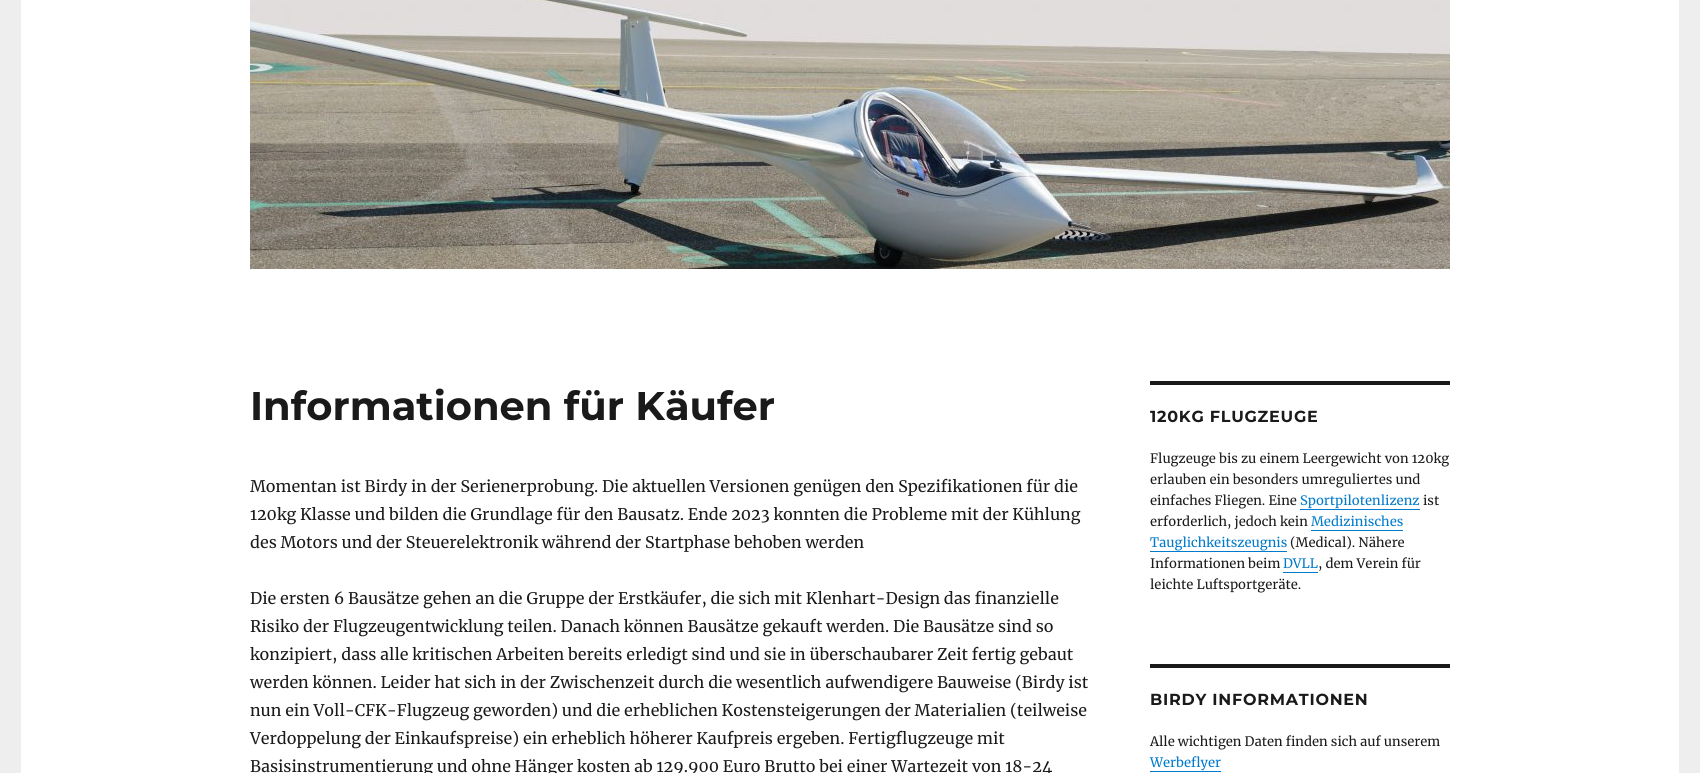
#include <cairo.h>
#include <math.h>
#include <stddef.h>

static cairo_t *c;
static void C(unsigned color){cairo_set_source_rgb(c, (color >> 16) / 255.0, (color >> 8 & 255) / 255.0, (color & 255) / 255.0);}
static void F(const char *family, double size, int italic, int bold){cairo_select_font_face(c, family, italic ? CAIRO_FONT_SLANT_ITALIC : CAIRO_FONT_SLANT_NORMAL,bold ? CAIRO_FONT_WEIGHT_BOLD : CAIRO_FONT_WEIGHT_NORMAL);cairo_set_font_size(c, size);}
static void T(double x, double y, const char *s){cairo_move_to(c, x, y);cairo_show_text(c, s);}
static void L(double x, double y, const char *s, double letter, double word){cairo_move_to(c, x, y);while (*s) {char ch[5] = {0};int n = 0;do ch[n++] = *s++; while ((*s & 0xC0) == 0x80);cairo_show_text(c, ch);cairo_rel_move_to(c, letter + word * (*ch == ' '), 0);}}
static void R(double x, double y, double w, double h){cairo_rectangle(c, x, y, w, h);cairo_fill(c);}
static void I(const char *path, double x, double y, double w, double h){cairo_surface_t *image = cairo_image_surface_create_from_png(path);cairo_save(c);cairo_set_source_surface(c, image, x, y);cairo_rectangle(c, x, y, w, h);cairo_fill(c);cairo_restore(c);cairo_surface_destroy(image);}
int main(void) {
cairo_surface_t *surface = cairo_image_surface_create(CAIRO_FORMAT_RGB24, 1700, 773);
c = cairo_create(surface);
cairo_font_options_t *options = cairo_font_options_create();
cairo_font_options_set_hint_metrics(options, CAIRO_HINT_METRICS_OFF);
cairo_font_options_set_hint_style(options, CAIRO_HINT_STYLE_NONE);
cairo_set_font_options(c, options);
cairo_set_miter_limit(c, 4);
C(0xeeeeee);
cairo_paint(c);
C(0xffffff);
R(21,0,1658,773);
I("1.png",250,0,1200,269);
F("Montserrat Thin",40,0,0);
C(0x1a1a1a);
T(250,420,"Informationen für Käufer");
F("Merriweather",16,0,0);
T(250,492,"Momentan ist Birdy in der Serienerprobung. Die aktuellen Versionen genügen den Spezifikationen für die");
T(250,520,"120kg Klasse und bilden die Grundlage für den Bausatz. Ende 2023 konnten die Probleme mit der Kühlung");
T(250,548,"des Motors und der Steuerelektronik während der Startphase behoben werden");
T(250,604,"Die ersten 6 Bausätze gehen an die Gruppe der Erstkäufer, die sich mit Klenhart-Design das finanzielle");
T(250,632,"Risiko der Flugzeugentwicklung teilen. Danach können Bausätze gekauft werden. Die Bausätze sind so");
T(250,660,"konzipiert, dass alle kritischen Arbeiten bereits erledigt sind und sie in überschaubarer Zeit fertig gebaut");
T(250,688,"werden können. Leider hat sich in der Zwischenzeit durch die wesentlich aufwendigere Bauweise (Birdy ist");
T(250,716,"nun ein Voll-CFK-Flugzeug geworden) und die erheblichen Kostensteigerungen der Materialien (teilweise");
T(250,744,"Verdoppelung der Einkaufspreise) ein erheblich höherer Kaufpreis ergeben. Fertigflugzeuge mit");
T(250,772,"Basisinstrumentierung und ohne Hänger kosten ab 129.900 Euro Brutto bei einer Wartezeit von 18-24");
R(1150,381,300,4);
F("Montserrat Thin",16,0,0);
L(1150,422,"120KG FLUGZEUGE",.75,0);
F("Merriweather",13,0,0);
T(1150,463,"Flugzeuge bis zu einem Leergewicht von 120kg");
T(1150,484,"erlauben ein besonders umreguliertes und");
T(1150,505,"einfaches Fliegen. Eine");
C(0x007acc);
T(1300,505,"Sportpilotenlizenz");
R(1300,509,120,1);
C(0x1a1a1a);
T(1423,505,"ist");
T(1150,526,"erforderlich, jedoch kein");
C(0x007acc);
T(1311,526,"Medizinisches");
R(1311,530,92,1);
T(1150,547,"Tauglichkeitszeugnis");
R(1150,551,137,1);
C(0x1a1a1a);
T(1290,547,"(Medical). Nähere");
T(1150,568,"Informationen beim");
C(0x007acc);
T(1283,568,"DVLL");
R(1283,572,35,1);
C(0x1a1a1a);
T(1318,568,", dem Verein für");
T(1150,589,"leichte Luftsportgeräte.");
R(1150,664,300,4);
F("Montserrat Thin",16,0,0);
L(1150,705,"BIRDY INFORMATIONEN",.75,0);
F("Merriweather",13,0,0);
T(1150,746,"Alle wichtigen Daten finden sich auf unserem");
C(0x007acc);
T(1150,767,"Werbeflyer");
R(1150,771,71,1);
cairo_surface_write_to_png(surface, "o.png");
cairo_font_options_destroy(options);
cairo_destroy(c);
cairo_surface_destroy(surface);
return 0;
}
